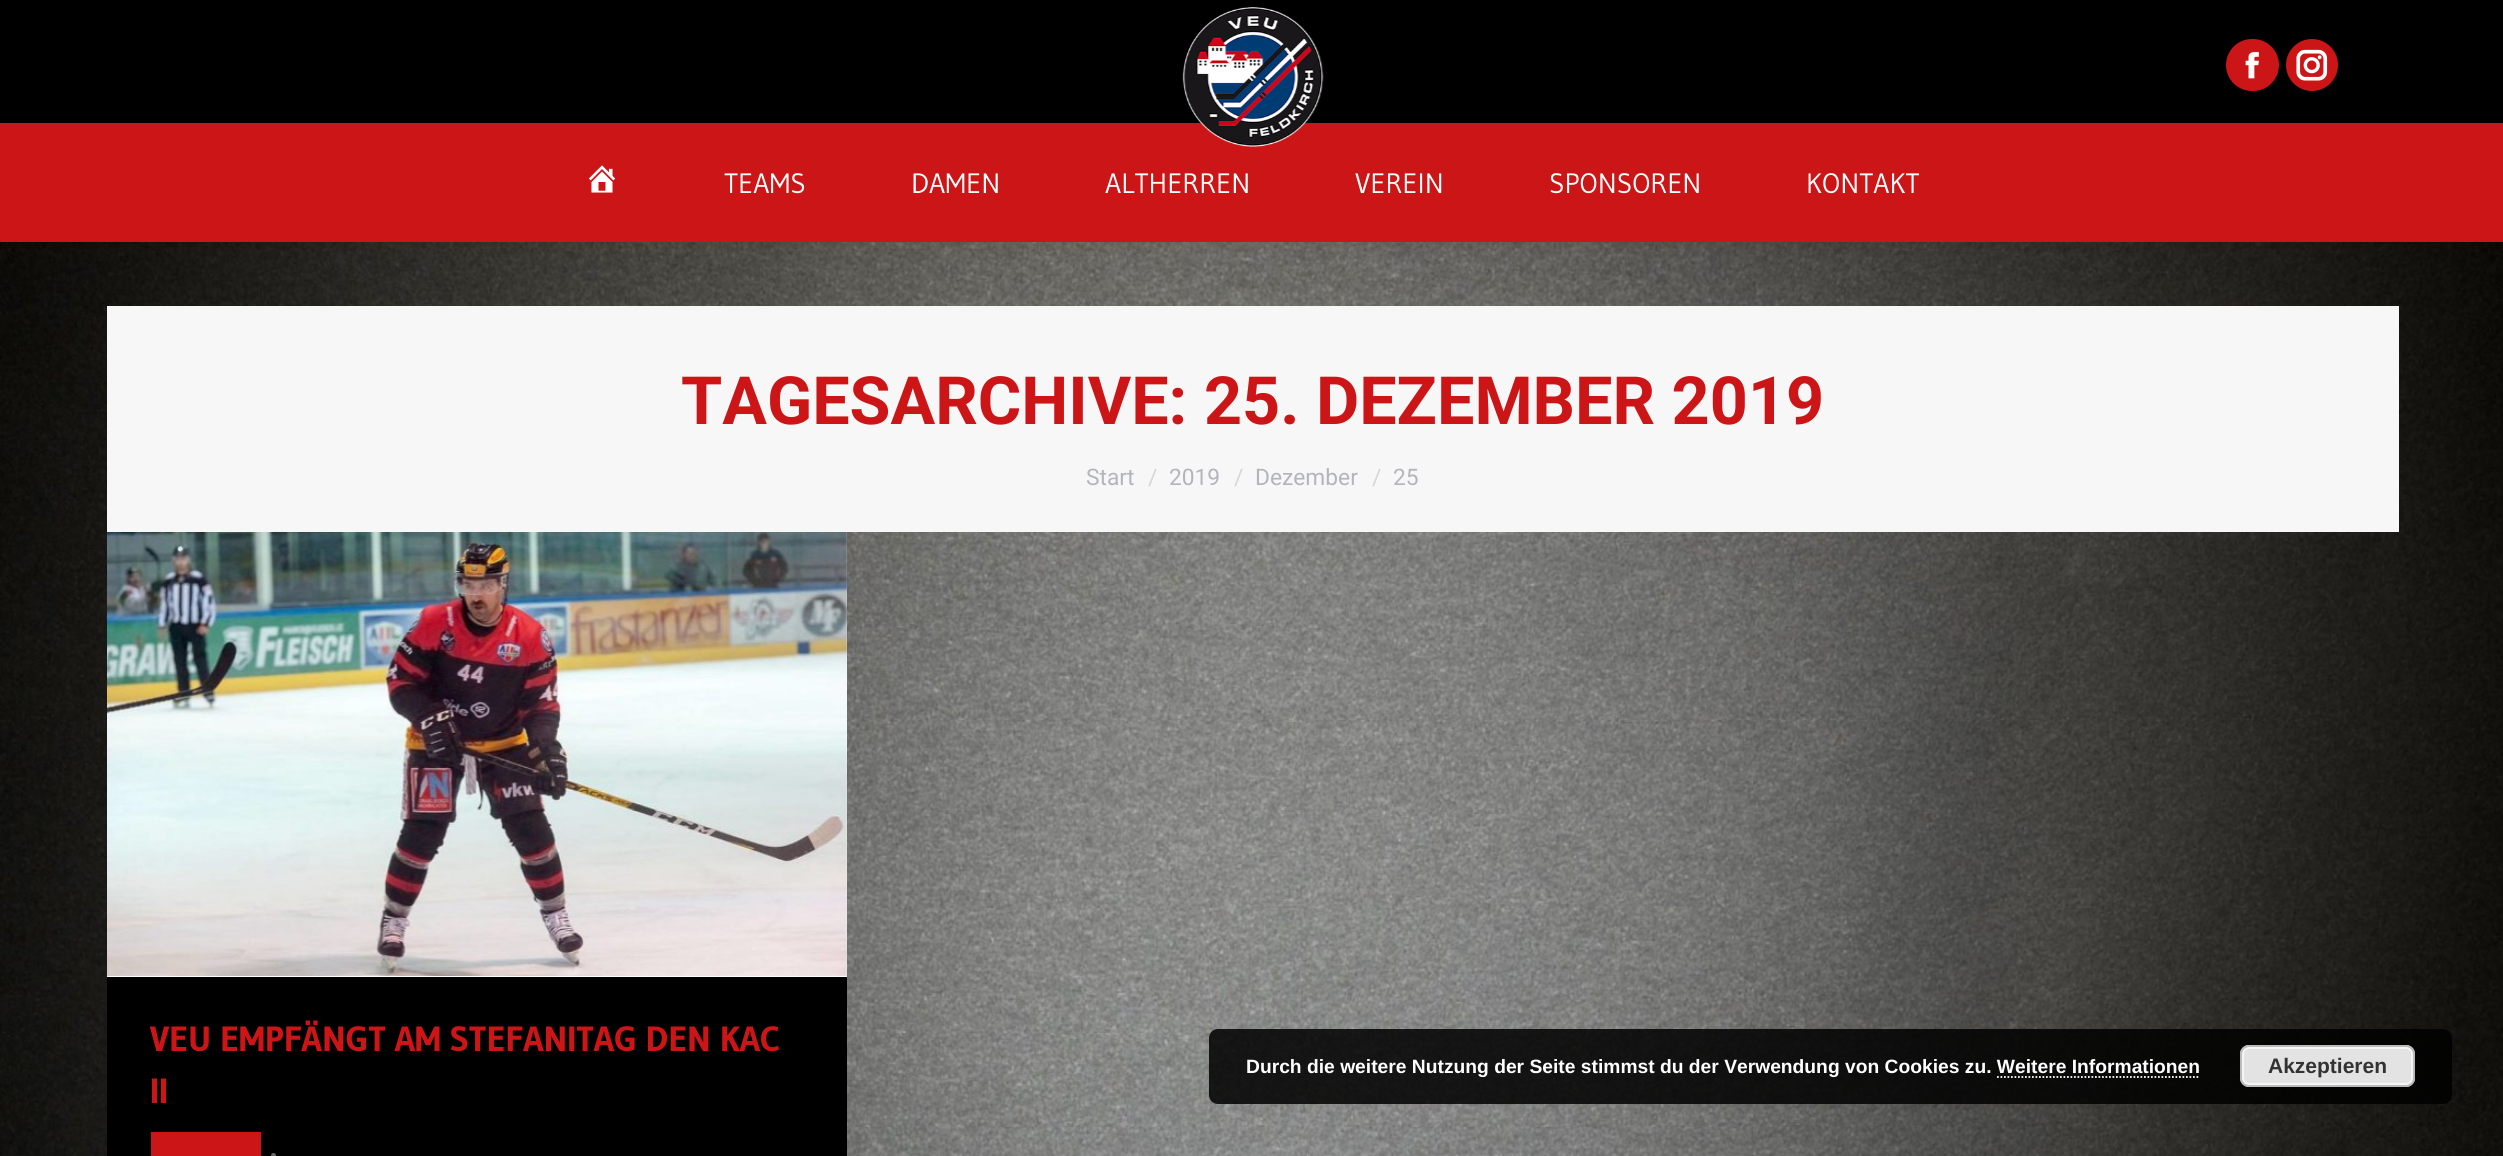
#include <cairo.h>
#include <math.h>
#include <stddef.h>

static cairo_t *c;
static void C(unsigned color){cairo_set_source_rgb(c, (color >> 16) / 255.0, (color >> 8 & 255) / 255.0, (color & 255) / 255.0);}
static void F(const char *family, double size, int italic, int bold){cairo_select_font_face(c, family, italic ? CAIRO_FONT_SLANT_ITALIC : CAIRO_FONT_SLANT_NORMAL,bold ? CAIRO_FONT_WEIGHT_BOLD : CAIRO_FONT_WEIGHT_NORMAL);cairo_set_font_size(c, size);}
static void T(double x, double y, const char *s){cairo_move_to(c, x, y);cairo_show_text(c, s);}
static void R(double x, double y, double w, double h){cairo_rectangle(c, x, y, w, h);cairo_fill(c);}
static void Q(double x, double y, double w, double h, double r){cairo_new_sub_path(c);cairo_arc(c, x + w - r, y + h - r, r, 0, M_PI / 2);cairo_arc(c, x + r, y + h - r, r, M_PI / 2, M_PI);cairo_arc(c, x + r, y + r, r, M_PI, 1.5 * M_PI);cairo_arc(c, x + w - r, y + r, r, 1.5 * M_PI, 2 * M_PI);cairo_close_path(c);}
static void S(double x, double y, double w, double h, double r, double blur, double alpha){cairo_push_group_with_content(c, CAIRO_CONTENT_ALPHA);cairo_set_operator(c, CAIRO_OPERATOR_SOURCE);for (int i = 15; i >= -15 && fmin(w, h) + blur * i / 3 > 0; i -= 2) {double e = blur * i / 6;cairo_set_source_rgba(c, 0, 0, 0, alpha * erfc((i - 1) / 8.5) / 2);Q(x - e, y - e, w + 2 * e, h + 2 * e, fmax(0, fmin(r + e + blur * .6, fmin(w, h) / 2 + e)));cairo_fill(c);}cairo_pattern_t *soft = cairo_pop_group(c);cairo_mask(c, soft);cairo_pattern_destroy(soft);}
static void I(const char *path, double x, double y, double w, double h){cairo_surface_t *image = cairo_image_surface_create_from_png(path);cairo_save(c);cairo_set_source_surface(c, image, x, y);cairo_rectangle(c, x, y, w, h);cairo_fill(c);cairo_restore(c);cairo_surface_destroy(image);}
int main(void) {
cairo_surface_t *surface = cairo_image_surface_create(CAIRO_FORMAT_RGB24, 2503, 1156);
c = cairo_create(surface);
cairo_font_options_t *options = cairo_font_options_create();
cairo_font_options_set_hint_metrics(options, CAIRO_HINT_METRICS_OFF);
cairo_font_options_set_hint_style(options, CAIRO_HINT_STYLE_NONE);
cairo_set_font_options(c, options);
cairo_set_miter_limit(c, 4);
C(0xffffff);
cairo_paint(c);
I("1.png",0,242,2503,914);
C(0x000000);
S(-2,-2,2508,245,0,13,.07);
C(0xcc1517);
R(0,123,2503,119);
C(0x000000);
R(0,0,2503,123);
C(0xcc1517);
Q(2226,39,53,52,26);
cairo_fill(c);
I("2.png",2245,52,14,27);
cairo_arc(c,2312,65,26,0,2 * M_PI);
cairo_fill(c);
I("3.png",2296,49,32,32);
I("4.png",1182,7,142,140);
I("5.png",588,165,28,28);
F("Gudea",28,0,0);
C(0xffffff);
T(724,193,"TEAMS");
T(911,193,"DAMEN");
T(1105,193,"ALTHERREN");
T(1355,193,"VEREIN");
T(1549,193,"SPONSOREN");
T(1806,193,"KONTAKT");
C(0xf7f7f7);
R(107,306,2292,226);
F("Roboto",66.5,0,1);
C(0xcc1517);
T(681,424,"TAGESARCHIVE: 25. DEZEMBER 2019");
F("Roboto",22.75,0,0);
C(0xb4b5bb);
T(1086,485,"Start");
C(0xd6d6d9);
T(1148,485,"/");
C(0xb4b5bb);
T(1169,485,"2019");
C(0xd6d6d9);
T(1234,485,"/");
C(0xb4b5bb);
T(1255,485,"Dezember");
C(0xd6d6d9);
T(1372,485,"/");
C(0xb4b5bb);
T(1393,485,"25");
C(0xffffff);
R(107,532,740,445);
I("6.png",107,532,740,444);
C(0x000000);
R(107,977,740,179);
F("Gudea",35,0,1);
C(0xcc1517);
T(150,1051,"VEU EMPFÄNGT AM STEFANITAG DEN KAC");
T(150,1103,"II");
R(151,1132,110,24);
C(0x686868);
cairo_new_path(c);
cairo_arc(c,273.5,1155.5,2.5,0,2 * M_PI);
cairo_fill(c);
cairo_set_source_rgba(c,0,0,0,0.85);
Q(1209,1029,1243,75,9);
cairo_fill(c);
F("Liberation Sans",19.25,0,1);
C(0xffffff);
T(1246,1073,"Durch die weitere Nutzung der Seite stimmst du der Verwendung von Cookies zu. Weitere Informationen");
C(0xe3e3e3);
Q(2240,1045,175,42,9);
cairo_fill(c);
Q(2243,1048,169,36,6);
C(0xf6f6f6);
cairo_stroke(c);
Q(2241,1046,173,40,8);
C(0xbbbbbb);
cairo_stroke(c);
F("Liberation Sans",21,0,1);
C(0x333333);
T(2268,1073,"Akzeptieren");
cairo_new_path(c);
cairo_move_to(c,1997,1077);
cairo_line_to(c,2200,1077);
C(0xffffff);
cairo_set_line_width(c,1.8);
cairo_set_dash(c,(double[]){1.75,1.75},2,0);
cairo_stroke(c);
cairo_surface_write_to_png(surface, "o.png");
cairo_font_options_destroy(options);
cairo_destroy(c);
cairo_surface_destroy(surface);
return 0;
}
